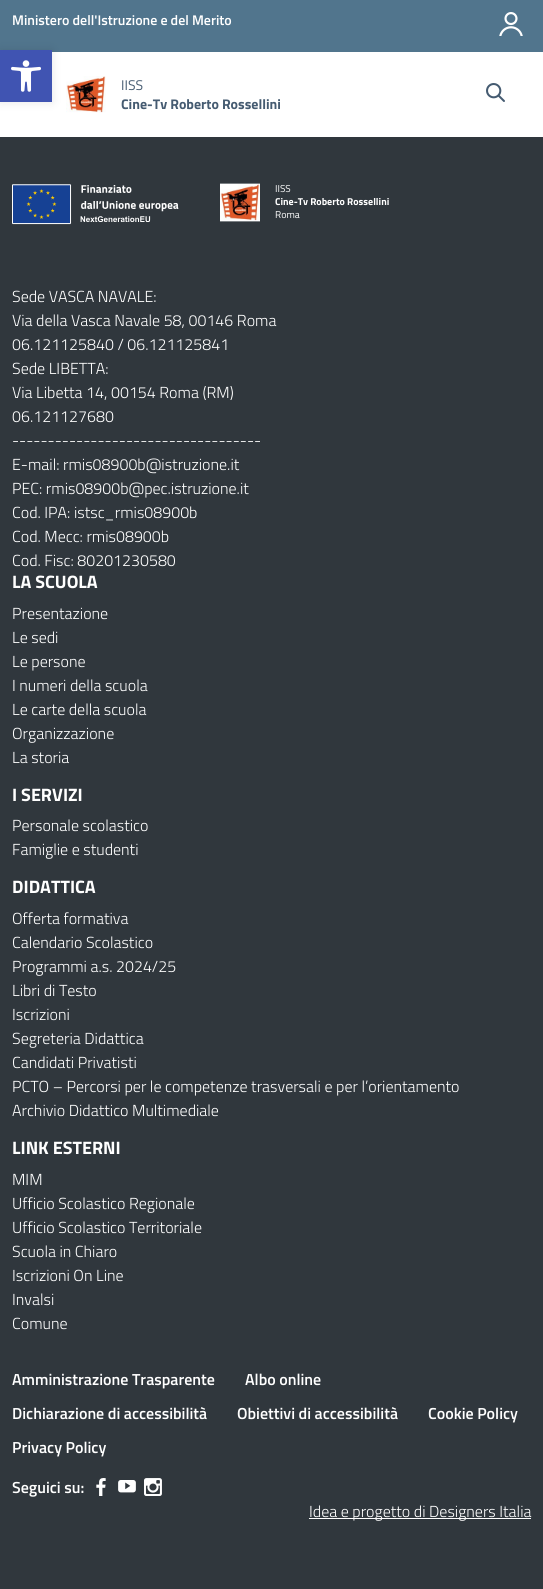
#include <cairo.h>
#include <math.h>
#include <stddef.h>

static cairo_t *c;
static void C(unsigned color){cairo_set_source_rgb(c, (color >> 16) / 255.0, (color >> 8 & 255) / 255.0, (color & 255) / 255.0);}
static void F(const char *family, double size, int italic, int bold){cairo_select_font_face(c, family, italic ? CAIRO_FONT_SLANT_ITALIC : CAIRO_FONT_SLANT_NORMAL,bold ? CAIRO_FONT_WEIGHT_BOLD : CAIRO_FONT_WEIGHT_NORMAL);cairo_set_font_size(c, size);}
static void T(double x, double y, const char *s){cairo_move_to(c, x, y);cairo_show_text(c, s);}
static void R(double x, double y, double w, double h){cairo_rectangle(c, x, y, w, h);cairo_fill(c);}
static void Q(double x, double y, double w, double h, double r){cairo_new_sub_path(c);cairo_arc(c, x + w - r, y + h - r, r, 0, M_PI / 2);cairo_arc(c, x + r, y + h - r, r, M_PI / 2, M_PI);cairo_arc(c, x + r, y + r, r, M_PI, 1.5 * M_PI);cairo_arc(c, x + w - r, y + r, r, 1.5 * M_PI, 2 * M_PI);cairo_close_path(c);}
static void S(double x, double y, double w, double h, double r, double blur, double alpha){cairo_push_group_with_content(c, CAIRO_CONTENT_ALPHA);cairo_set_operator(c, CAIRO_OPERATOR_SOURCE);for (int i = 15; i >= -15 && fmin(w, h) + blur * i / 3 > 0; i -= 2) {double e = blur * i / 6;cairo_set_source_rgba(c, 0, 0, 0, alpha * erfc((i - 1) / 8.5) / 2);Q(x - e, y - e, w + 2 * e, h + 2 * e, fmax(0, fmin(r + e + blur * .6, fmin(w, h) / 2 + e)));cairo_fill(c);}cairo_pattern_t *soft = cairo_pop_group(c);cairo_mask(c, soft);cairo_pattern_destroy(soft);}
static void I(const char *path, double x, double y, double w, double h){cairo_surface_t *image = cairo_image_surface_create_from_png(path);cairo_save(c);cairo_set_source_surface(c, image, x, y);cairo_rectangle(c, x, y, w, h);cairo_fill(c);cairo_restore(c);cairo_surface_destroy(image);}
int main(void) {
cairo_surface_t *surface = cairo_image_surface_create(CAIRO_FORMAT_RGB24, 543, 1589);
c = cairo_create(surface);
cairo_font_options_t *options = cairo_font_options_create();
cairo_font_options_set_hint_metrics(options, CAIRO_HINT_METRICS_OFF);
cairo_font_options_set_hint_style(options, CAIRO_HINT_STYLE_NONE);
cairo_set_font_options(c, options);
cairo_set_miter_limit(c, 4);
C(0x30373d);
cairo_paint(c);
C(0xffffff);
R(0,52,543,85);
C(0x51758d);
R(0,0,543,52);
F("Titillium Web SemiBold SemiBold",14,0,0);
C(0xffffff);
T(12,25,"Ministero dell'Istruzione e del Merito");
I("1.png",499,12,24,24);
I("2.png",66,76,40,37);
F("Titillium Web",14,0,0);
C(0x455b71);
T(121,90,"IISS");
F("Titillium Web",14,0,1);
T(121,109,"Cine-Tv Roberto Rossellini");
I("3.png",486,83,19,19);
I("4.png",12,184,167,41);
I("5.png",220,183,40,39);
F("Titillium Web",10,0,0);
C(0xffffff);
T(275,192,"IISS");
F("Titillium Web",10,0,1);
T(275,205,"Cine-Tv Roberto Rossellini");
F("Titillium Web",10,0,0);
T(275,218,"Roma");
F("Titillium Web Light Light",16,0,0);
T(12,302,"Sede VASCA NAVALE:");
T(12,326,"Via della Vasca Navale 58, 00146 Roma");
T(12,350,"06.121125840 / 06.121125841");
T(12,374,"Sede LIBETTA:");
T(12,398,"Via Libetta 14, 00154 Roma (RM)");
T(12,422,"06.121127680");
T(12,446,"-----------------------------------");
T(12,470,"E-mail: rmis08900b@istruzione.it");
T(12,494,"PEC: rmis08900b@pec.istruzione.it");
T(12,518,"Cod. IPA: istsc_rmis08900b");
T(12,542,"Cod. Mecc: rmis08900b");
T(12,566,"Cod. Fisc: 80201230580");
F("Titillium Web",18,0,1);
T(12,588,"LA SCUOLA");
F("Titillium Web Light Light",16,0,0);
T(12,619,"Presentazione");
T(12,643,"Le sedi");
T(12,667,"Le persone");
T(12,691,"I numeri della scuola");
T(12,715,"Le carte della scuola");
T(12,739,"Organizzazione");
T(12,763,"La storia");
F("Titillium Web",18,0,1);
T(12,801,"I SERVIZI");
F("Titillium Web Light Light",16,0,0);
T(12,831,"Personale scolastico");
T(12,855,"Famiglie e studenti");
F("Titillium Web",18,0,1);
T(12,893,"DIDATTICA");
F("Titillium Web Light Light",16,0,0);
T(12,924,"Offerta formativa");
T(12,948,"Calendario Scolastico");
T(12,972,"Programmi a.s. 2024/25");
T(12,996,"Libri di Testo");
T(12,1020,"Iscrizioni");
T(12,1044,"Segreteria Didattica");
T(12,1068,"Candidati Privatisti");
T(12,1092,"PCTO – Percorsi per le competenze trasversali e per l’orientamento");
T(12,1116,"Archivio Didattico Multimediale");
F("Titillium Web",18,0,1);
T(12,1154,"LINK ESTERNI");
F("Titillium Web Light Light",16,0,0);
T(12,1185,"MIM");
T(12,1209,"Ufficio Scolastico Regionale");
T(12,1233,"Ufficio Scolastico Territoriale");
T(12,1257,"Scuola in Chiaro");
T(12,1281,"Iscrizioni On Line");
T(12,1305,"Invalsi");
T(12,1329,"Comune");
F("Titillium Web SemiBold SemiBold",16,0,0);
T(12,1385,"Amministrazione Trasparente");
T(245,1385,"Albo online");
T(12,1419,"Dichiarazione di accessibilità");
T(237,1419,"Obiettivi di accessibilità");
T(428,1419,"Cookie Policy");
T(12,1453,"Privacy Policy");
T(12,1493,"Seguici su:");
I("6.png",96,1478,10,18);
I("7.png",118,1480,18,13);
I("8.png",144,1478,18,18);
R(309,1518,222,1);
F("Titillium Web Light Light",16,0,0);
T(309,1517,"Idea e progetto di Designers Italia");
C(0x000000);
S(0,50,52,52,0,5,.1);
C(0x4054b2);
R(0,50,52,52);
I("9.png",11,60,30,32);
cairo_surface_write_to_png(surface, "o.png");
cairo_font_options_destroy(options);
cairo_destroy(c);
cairo_surface_destroy(surface);
return 0;
}
